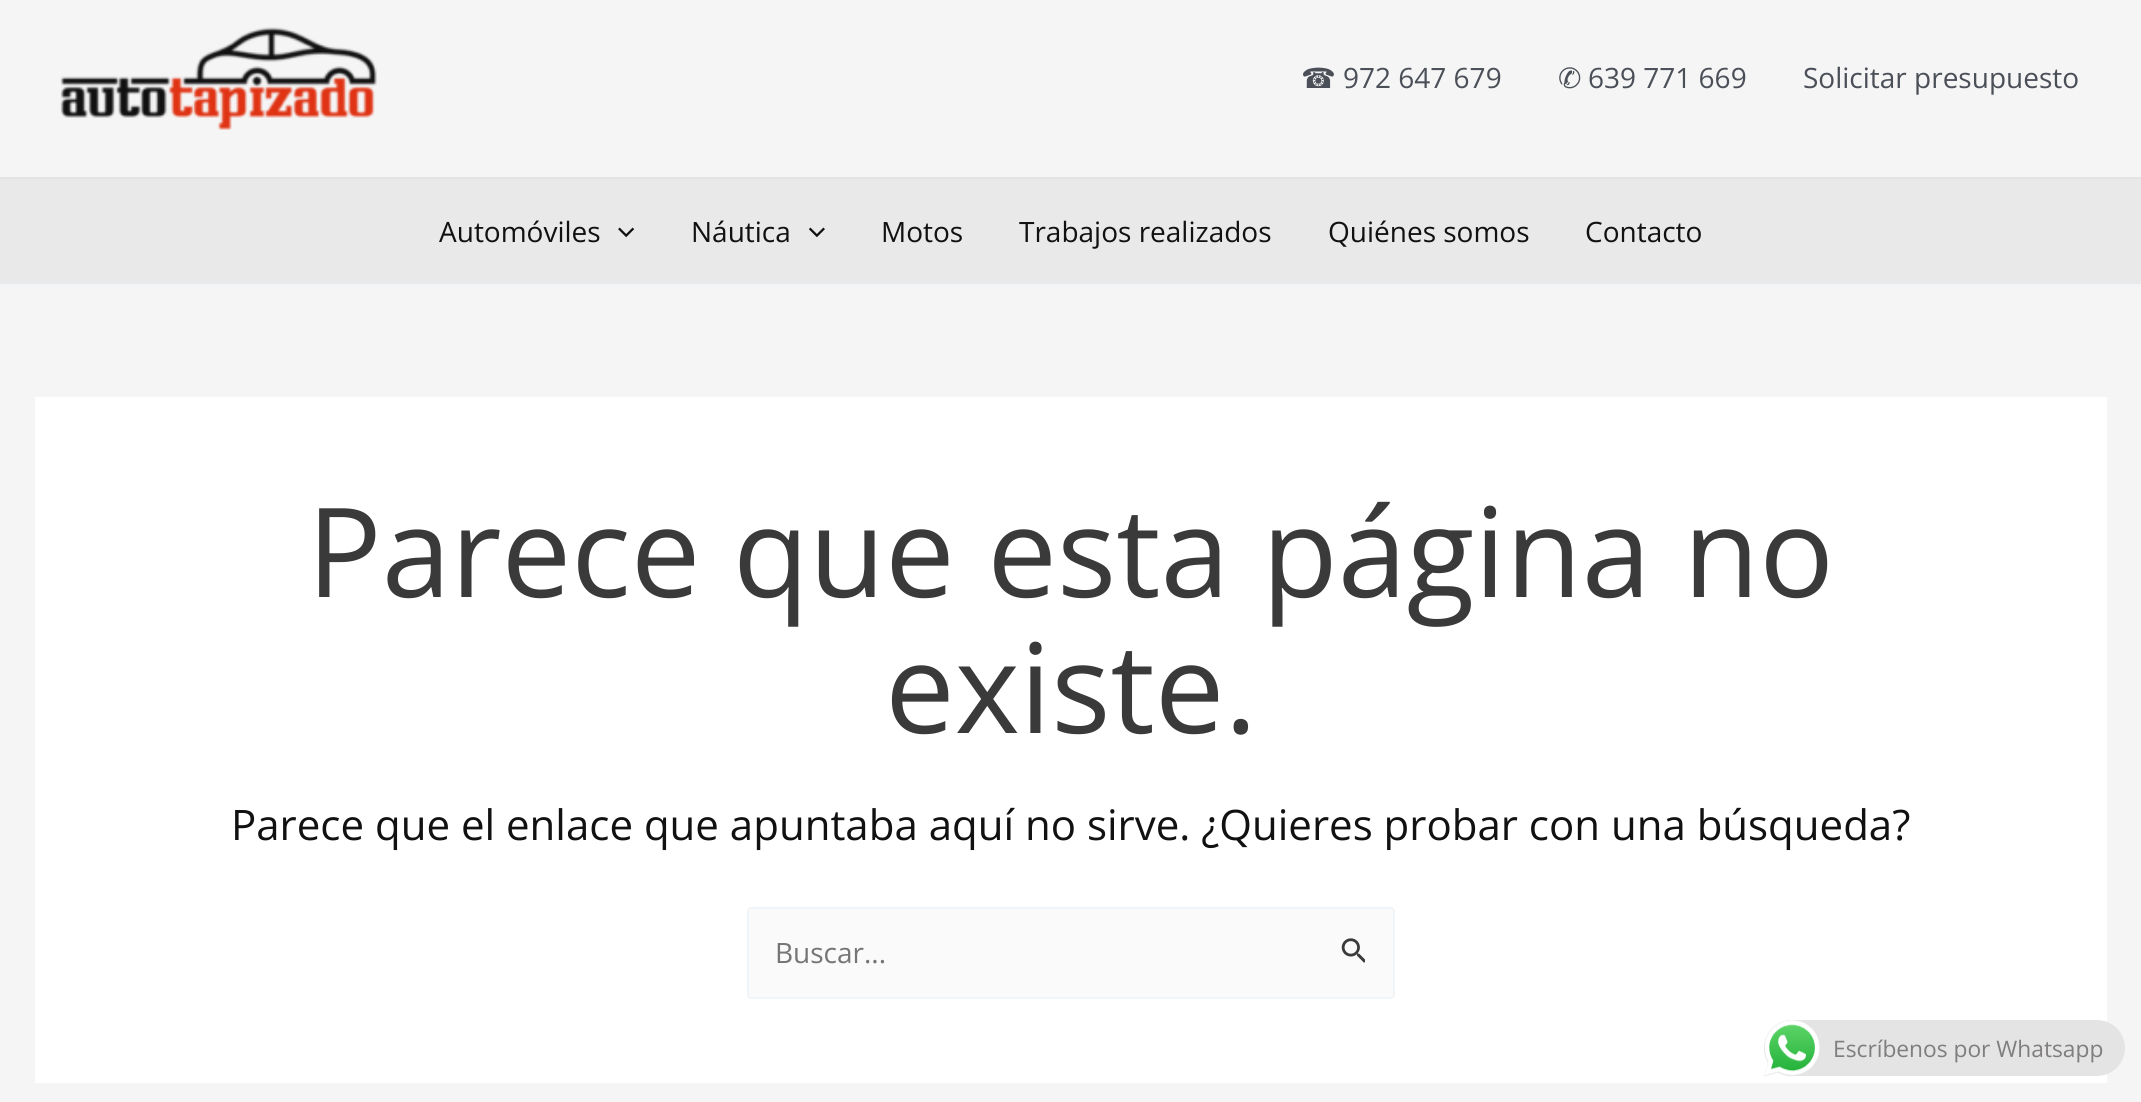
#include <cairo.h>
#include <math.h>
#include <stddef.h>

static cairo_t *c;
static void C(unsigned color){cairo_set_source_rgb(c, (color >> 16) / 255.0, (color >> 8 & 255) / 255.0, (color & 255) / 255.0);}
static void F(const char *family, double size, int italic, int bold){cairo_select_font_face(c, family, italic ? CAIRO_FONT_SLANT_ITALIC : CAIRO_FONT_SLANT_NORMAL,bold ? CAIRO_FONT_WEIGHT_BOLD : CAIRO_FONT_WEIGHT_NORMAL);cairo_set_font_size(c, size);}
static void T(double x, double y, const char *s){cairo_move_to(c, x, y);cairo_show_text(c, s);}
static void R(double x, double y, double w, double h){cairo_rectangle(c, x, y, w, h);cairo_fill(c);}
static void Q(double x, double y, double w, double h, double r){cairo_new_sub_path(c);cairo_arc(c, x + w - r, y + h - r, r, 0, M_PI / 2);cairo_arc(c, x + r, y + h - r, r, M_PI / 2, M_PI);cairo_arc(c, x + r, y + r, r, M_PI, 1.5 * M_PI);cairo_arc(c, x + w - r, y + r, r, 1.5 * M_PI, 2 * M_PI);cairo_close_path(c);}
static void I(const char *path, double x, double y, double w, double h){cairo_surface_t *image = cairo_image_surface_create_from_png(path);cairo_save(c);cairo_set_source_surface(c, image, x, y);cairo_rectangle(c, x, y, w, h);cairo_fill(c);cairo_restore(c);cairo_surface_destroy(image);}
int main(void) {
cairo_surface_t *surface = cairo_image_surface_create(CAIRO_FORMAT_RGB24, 2141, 1102);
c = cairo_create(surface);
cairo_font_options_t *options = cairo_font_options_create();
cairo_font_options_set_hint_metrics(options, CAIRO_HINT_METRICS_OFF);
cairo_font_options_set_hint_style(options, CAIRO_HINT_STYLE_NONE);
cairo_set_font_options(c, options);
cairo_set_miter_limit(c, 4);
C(0xf5f5f5);
cairo_paint(c);
C(0xe3e3e3);
R(0,177,2141,2);
I("1.png",60,27,317,103);
F("DejaVu Sans",28,0,0);
C(0x4b4f58);
T(1301,88,"☎");
F("Open Sans",28,0,0);
T(1343,88,"972 647 679");
F("DejaVu Sans",28,0,0);
T(1558,88,"✆");
F("Open Sans",28,0,0);
T(1588,88,"639 771 669");
T(1803,88,"Solicitar presupuesto");
C(0xe9e9e9);
R(0,179,2141,105);
C(0xf2f5f7);
R(0,284,2141,2);
C(0x111111);
T(439,242,"Automóviles");
I("2.png",618,227,17,11);
T(691,242,"Náutica");
I("3.png",809,227,16,11);
T(881,242,"Motos");
T(1019,242,"Trabajos realizados");
T(1328,242,"Quiénes somos");
T(1585,242,"Contacto");
C(0xffffff);
R(35,397,2072,686);
F("Open Sans",124.25,0,0);
C(0x3a3a3a);
T(307,597,"Parece que esta página no");
T(885,733,"existe.");
F("Open Sans",42,0,0);
C(0x111111);
T(231,840,"Parece que el enlace que apuntaba aquí no sirve. ¿Quieres probar con una búsqueda?");
C(0xfafafa);
Q(748,908,646,90,3);
cairo_fill_preserve(c);
C(0xf2f5f7);
cairo_stroke(c);
F("Open Sans",28,0,0);
C(0x757575);
T(775,963,"Buscar...");
I("4.png",1341,938,24,25);
C(0xe4e4e4);
Q(1764,1020,361,56,28);
cairo_fill(c);
I("5.png",1764,1020,56,57);
F("Open Sans",22.75,0,0);
C(0x7f7d7d);
T(1833,1057,"Escríbenos por Whatsapp");
cairo_surface_write_to_png(surface, "o.png");
cairo_font_options_destroy(options);
cairo_destroy(c);
cairo_surface_destroy(surface);
return 0;
}
